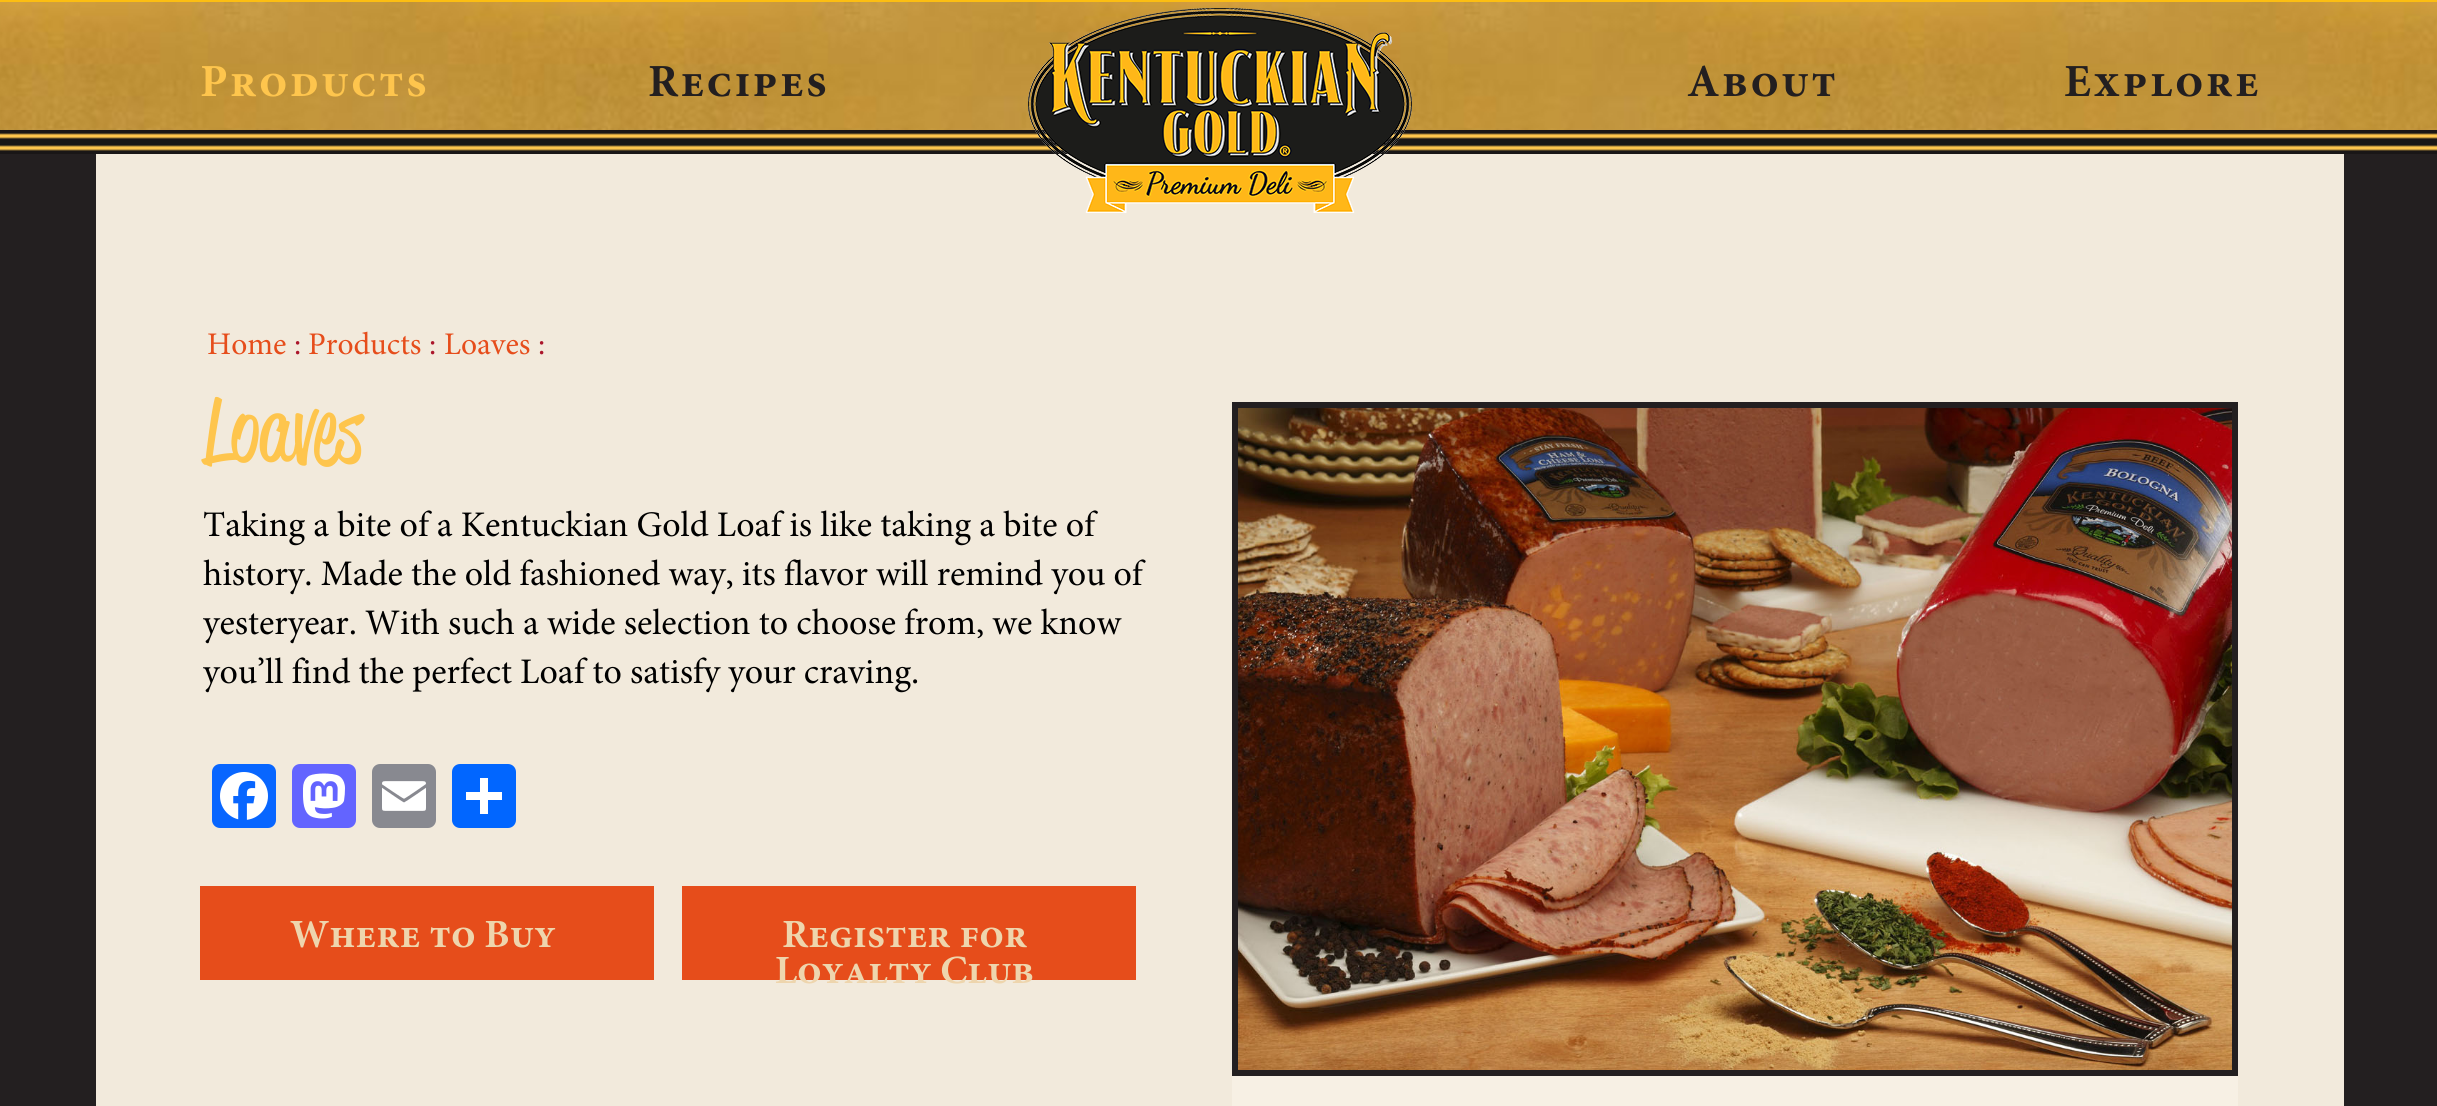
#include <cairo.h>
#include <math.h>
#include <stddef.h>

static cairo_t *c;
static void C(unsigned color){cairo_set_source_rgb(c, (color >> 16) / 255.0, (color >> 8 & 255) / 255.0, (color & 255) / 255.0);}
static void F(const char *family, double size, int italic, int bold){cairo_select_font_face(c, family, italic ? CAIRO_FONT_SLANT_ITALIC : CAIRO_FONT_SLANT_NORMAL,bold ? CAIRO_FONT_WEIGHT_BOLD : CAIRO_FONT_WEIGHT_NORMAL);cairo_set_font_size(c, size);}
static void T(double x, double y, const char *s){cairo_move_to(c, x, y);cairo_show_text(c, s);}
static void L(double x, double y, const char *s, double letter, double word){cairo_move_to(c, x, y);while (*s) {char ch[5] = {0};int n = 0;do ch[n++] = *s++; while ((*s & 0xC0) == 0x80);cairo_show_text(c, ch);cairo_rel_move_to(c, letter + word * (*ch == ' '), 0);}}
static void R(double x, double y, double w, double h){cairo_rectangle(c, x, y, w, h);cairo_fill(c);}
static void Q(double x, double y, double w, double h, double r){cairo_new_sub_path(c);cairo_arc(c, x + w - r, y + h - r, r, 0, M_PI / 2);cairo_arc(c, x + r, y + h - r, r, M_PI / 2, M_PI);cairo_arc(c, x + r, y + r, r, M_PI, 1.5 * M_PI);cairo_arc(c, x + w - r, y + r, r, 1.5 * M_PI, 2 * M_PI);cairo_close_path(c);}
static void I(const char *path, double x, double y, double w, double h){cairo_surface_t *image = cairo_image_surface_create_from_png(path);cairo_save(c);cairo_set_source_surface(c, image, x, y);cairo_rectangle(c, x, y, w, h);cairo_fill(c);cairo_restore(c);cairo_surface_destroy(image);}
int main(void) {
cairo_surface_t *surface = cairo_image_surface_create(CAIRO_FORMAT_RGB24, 2437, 1106);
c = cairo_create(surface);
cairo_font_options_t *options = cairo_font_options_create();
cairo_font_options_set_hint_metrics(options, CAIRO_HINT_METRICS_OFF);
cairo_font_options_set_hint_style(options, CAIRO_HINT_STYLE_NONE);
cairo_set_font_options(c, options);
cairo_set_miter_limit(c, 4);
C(0xffffff);
cairo_paint(c);
I("1.png",0,2,2437,128);
I("2.png",0,130,2437,24);
C(0xfcbe12);
R(0,0,2437,2);
C(0x231f20);
R(0,154,2437,952);
C(0xf2eadc);
R(96,154,2248,952);
I("3.png",1028,8,384,205);
F("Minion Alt",46,0,1);
C(0xfec54d);
L(200,96,"Products",2.25,0);
C(0x231f20);
L(648,96,"Recipes",2.25,0);
L(1687,96,"About",2.25,0);
L(2064,96,"Explore",2.25,0);
F("Minion",31.5,0,0);
C(0xe64d1b);
T(207,354,"Home");
C(0xab162b);
T(294,354,":");
C(0xe64d1b);
T(308,354,"Products");
C(0xab162b);
T(429,354,":");
C(0xe64d1b);
T(444,354,"Loaves");
C(0xab162b);
T(538,354,":");
F("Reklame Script",88,0,0);
C(0xfec54d);
T(203,460,"Loaves");
F("Minion",36,0,0);
C(0x000000);
T(203,536,"Taking a bite of a Kentuckian Gold Loaf is like taking a bite of");
T(203,585,"history. Made the old fashioned way, its flavor will remind you of");
T(203,634,"yesteryear. With such a wide selection to choose from, we know");
T(203,683,"you’ll find the perfect Loaf to satisfy your craving.");
C(0x0866ff);
Q(212,764,64,64,8);
cairo_fill(c);
I("4.png",220,772,48,48);
C(0x6364ff);
Q(292,764,64,64,8);
cairo_fill(c);
I("5.png",303,773,42,46);
C(0x888990);
Q(372,764,64,64,8);
cairo_fill(c);
I("6.png",382,781,44,30);
C(0x0166ff);
Q(452,764,64,64,8);
cairo_fill(c);
C(0xffffff);
R(480,778,8,36);
R(466,792,36,8);
C(0xe64d1b);
R(200,886,454,94);
F("Minion Alt",40,0,1);
C(0xeed5ad);
T(290,947,"Where to Buy");
C(0xe64d1b);
R(682,886,454,94);
C(0xeed5ad);
T(782,947,"Register for");
T(775,983,"Loyalty Club");
cairo_rectangle(c,1235,405,1000,668);
C(0x231f20);
cairo_set_line_width(c,6);
cairo_stroke(c);
I("7.png",1238,408,994,662);
C(0xf7f0e4);
R(1232,1076,1006,30);
cairo_surface_write_to_png(surface, "o.png");
cairo_font_options_destroy(options);
cairo_destroy(c);
cairo_surface_destroy(surface);
return 0;
}
